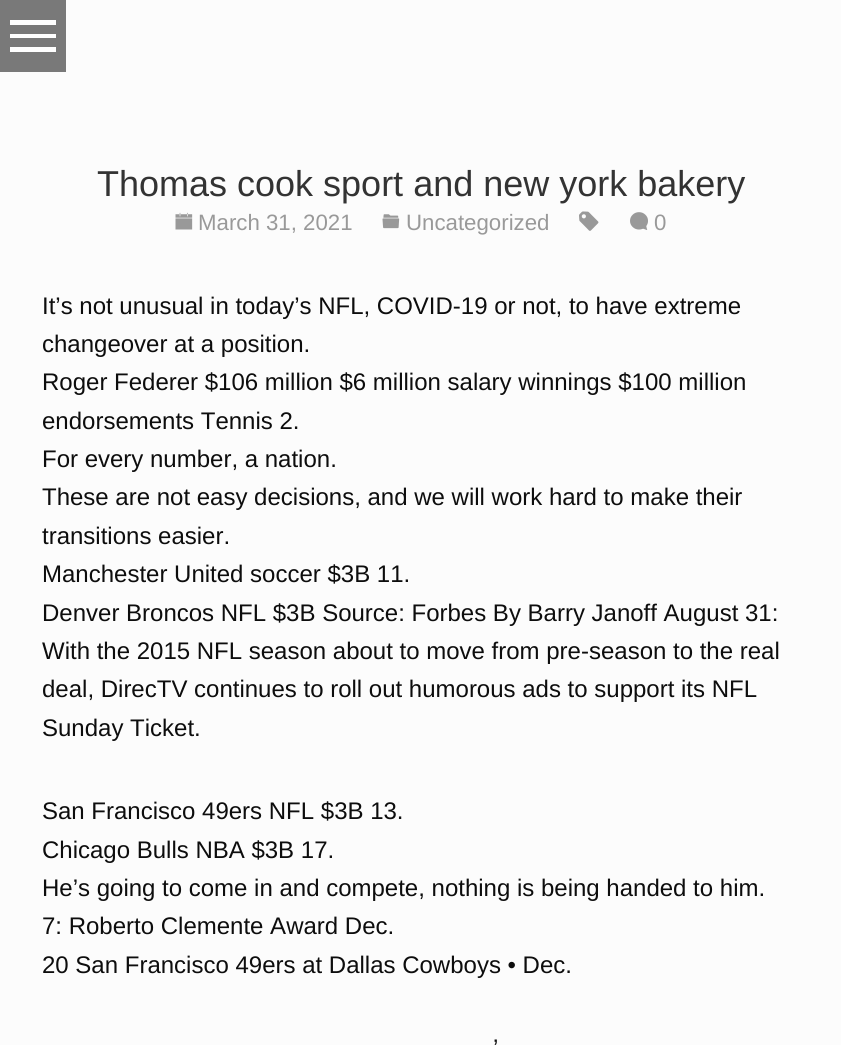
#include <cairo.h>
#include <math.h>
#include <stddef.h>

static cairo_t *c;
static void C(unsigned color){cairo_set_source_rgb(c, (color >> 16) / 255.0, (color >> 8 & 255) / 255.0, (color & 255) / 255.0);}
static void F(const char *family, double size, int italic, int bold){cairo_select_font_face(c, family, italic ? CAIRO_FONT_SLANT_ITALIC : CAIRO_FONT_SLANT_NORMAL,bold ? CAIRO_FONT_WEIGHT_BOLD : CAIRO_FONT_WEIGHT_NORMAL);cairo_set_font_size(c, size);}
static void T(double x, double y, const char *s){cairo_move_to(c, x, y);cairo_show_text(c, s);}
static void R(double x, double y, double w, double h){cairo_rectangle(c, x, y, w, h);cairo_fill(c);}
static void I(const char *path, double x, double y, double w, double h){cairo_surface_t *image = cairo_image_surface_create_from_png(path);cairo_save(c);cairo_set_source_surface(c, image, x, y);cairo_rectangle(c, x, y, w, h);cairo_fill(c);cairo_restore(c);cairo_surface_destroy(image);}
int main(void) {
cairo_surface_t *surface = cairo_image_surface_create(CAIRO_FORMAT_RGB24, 841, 1045);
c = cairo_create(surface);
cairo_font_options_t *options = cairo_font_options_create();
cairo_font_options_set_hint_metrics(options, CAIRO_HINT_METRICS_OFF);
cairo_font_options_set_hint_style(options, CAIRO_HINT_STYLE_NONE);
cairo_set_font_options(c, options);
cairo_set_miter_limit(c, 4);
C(0xfcfcfc);
cairo_paint(c);
C(0x797979);
R(0,0,66,72);
C(0xffffff);
cairo_new_path(c);
cairo_move_to(c,10,38);
cairo_line_to(c,10,34);
cairo_line_to(c,56,34);
cairo_line_to(c,56,38);
cairo_close_path(c);
cairo_move_to(c,10,25);
cairo_line_to(c,10,20);
cairo_line_to(c,56,20);
cairo_line_to(c,56,25);
cairo_close_path(c);
cairo_move_to(c,10,52);
cairo_line_to(c,10,47);
cairo_line_to(c,56,47);
cairo_line_to(c,56,52);
cairo_close_path(c);
cairo_fill(c);
F("Liberation Sans",36,0,0);
C(0x333333);
T(97,196,"Thomas cook sport and new york bakery");
I("1.png",175,212,18,18);
F("Liberation Sans",22.25,0,0);
C(0x999999);
T(198,230,"March 31, 2021");
I("2.png",382,214,18,15);
T(406,230,"Uncategorized");
I("3.png",579,211,20,20);
I("4.png",630,212,18,18);
T(654,230,"0");
F("Liberation Sans",24,0,0);
C(0x0d0d0d);
T(42,314,"It’s not unusual in today’s NFL, COVID-19 or not, to have extreme");
T(42,352,"changeover at a position.");
T(42,390,"Roger Federer $106 million $6 million salary winnings $100 million");
T(42,429,"endorsements Tennis 2.");
T(42,467,"For every number, a nation.");
T(42,505,"These are not easy decisions, and we will work hard to make their");
T(42,544,"transitions easier.");
T(42,582,"Manchester United soccer $3B 11.");
T(42,621,"Denver Broncos NFL $3B Source: Forbes By Barry Janoff August 31:");
T(42,659,"With the 2015 NFL season about to move from pre-season to the real");
T(42,697,"deal, DirecTV continues to roll out humorous ads to support its NFL");
T(42,736,"Sunday Ticket.");
T(42,819,"San Francisco 49ers NFL $3B 13.");
T(42,858,"Chicago Bulls NBA $3B 17.");
T(42,896,"He’s going to come in and compete, nothing is being handed to him.");
T(42,934,"7: Roberto Clemente Award Dec.");
T(42,973,"20 San Francisco 49ers at Dallas Cowboys • Dec.");
T(493,1056,"’");
cairo_surface_write_to_png(surface, "o.png");
cairo_font_options_destroy(options);
cairo_destroy(c);
cairo_surface_destroy(surface);
return 0;
}
